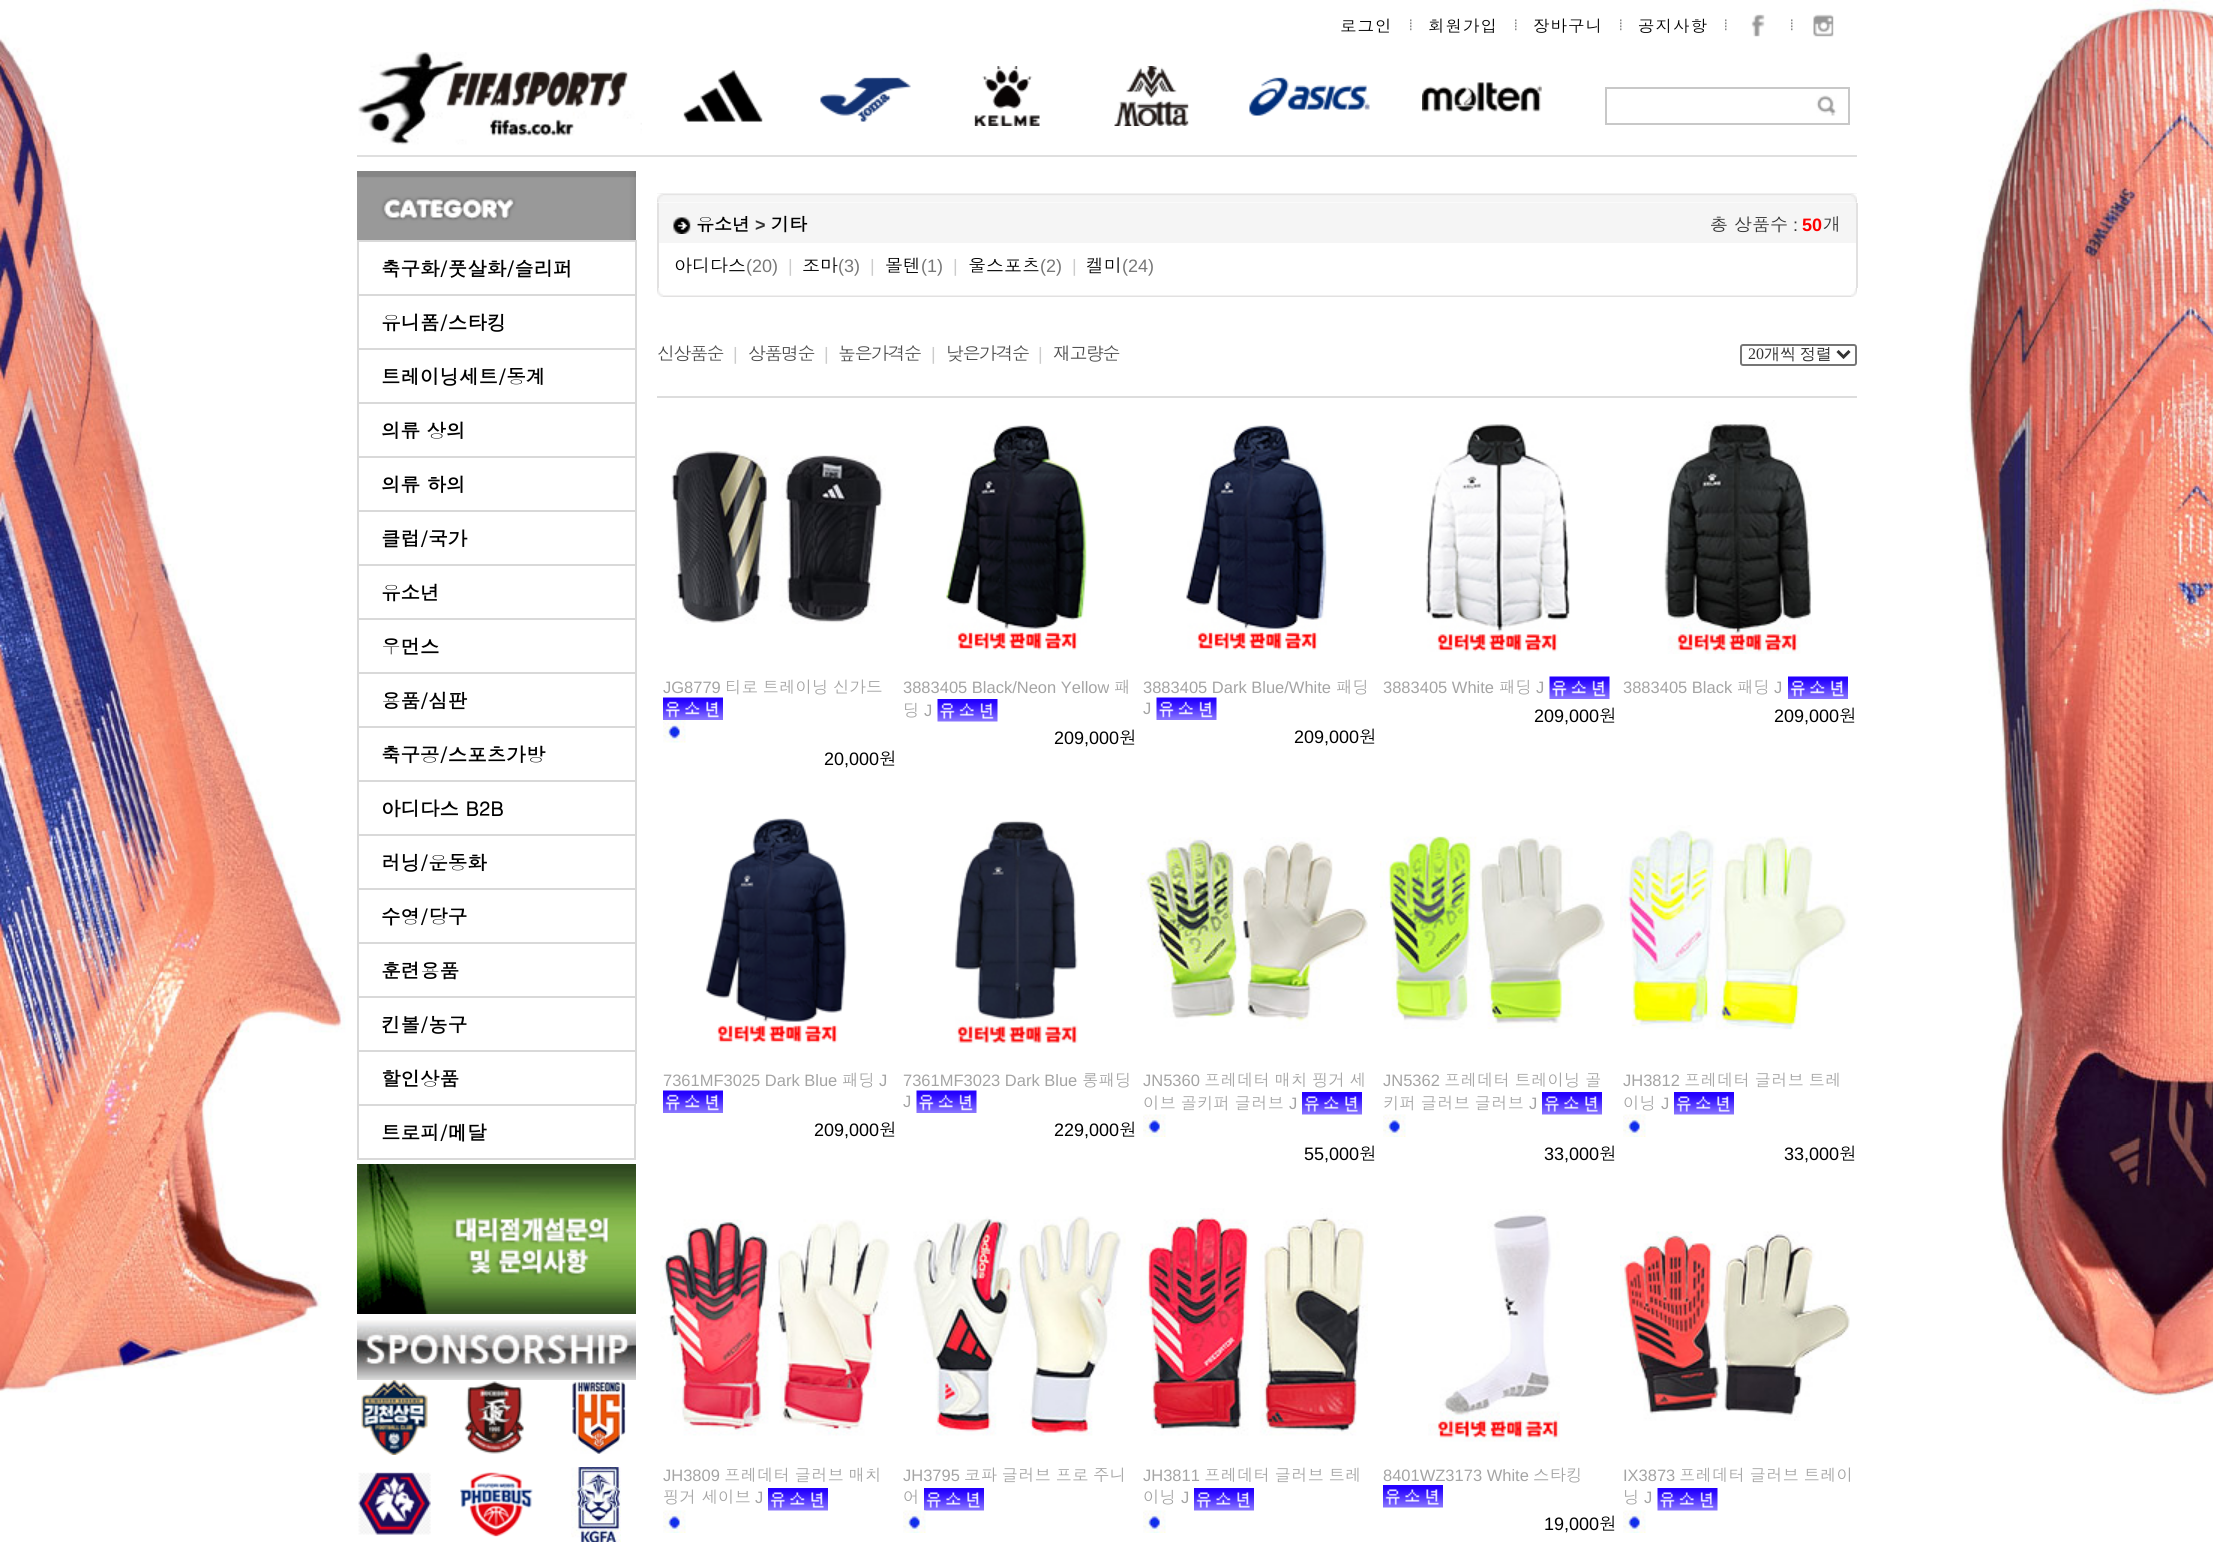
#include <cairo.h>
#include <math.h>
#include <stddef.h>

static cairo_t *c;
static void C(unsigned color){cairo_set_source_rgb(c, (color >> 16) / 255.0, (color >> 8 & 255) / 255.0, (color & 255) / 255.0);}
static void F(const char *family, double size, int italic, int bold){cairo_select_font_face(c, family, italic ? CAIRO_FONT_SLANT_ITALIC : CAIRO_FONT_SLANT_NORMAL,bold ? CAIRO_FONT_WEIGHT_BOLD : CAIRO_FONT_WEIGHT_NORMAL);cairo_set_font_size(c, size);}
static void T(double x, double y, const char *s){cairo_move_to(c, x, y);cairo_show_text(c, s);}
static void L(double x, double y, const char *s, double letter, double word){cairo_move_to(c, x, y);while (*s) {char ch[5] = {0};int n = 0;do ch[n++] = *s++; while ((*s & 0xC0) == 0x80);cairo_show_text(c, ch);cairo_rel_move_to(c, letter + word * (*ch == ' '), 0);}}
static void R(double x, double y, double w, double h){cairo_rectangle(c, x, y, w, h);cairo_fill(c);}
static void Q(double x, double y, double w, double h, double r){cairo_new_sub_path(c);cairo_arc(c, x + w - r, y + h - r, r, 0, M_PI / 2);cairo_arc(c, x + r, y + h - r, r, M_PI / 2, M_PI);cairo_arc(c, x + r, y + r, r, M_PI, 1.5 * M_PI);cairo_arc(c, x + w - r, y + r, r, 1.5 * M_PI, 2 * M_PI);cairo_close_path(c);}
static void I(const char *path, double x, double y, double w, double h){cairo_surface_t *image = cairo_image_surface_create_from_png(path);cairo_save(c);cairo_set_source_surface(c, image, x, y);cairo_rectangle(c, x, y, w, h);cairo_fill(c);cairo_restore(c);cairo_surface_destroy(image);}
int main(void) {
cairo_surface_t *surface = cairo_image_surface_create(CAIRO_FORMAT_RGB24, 2213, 1544);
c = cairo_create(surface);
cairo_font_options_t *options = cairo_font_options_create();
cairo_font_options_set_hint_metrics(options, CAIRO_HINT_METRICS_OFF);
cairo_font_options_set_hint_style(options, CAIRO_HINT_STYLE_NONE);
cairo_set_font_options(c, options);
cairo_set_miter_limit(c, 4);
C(0xffffff);
cairo_paint(c);
I("1.png",0,0,2213,1404);
F("Dotum",16.5,0,0);
C(0x000000);
L(1340,32,"로그인",1,0);
I("2.png",1410,19,2,12);
L(1428,32,"회원가입",1,0);
I("2.png",1515,19,2,12);
L(1533,32,"장바구니",1,0);
I("2.png",1620,19,2,12);
L(1638,32,"공지사항",1,0);
I("2.png",1725,19,2,12);
I("3.png",1751,14,14,23);
I("2.png",1791,19,2,12);
I("4.png",1813,14,21,23);
I("5.png",358,52,284,93);
I("6.png",683,70,80,52);
I("7.png",820,77,91,45);
I("8.png",974,66,66,60);
I("9.png",1114,66,75,60);
I("10.png",1249,77,121,39);
I("11.png",1422,82,120,30);
C(0xc8c8c8);
R(1605,87,245,2);
R(1848,87,2,38);
R(1605,123,245,2);
I("12.png",1816,95,21,21);
R(1605,87,2,38);
C(0xdfdfdf);
R(357,155,1500,2);
I("13.png",357,171,279,69);
C(0xd9d9d9);
R(357,240,279,2);
R(635,240,2,54);
R(357,240,2,54);
F("Dotum",19.5,0,1);
C(0x000000);
T(381,276,"축구화/풋살화/슬리퍼");
C(0xd9d9d9);
R(357,294,279,2);
R(635,294,2,54);
R(357,294,2,54);
C(0x000000);
T(381,330,"유니폼/스타킹");
C(0xd9d9d9);
R(357,348,279,2);
R(635,348,2,54);
R(357,348,2,54);
C(0x000000);
T(381,384,"트레이닝세트/동계");
C(0xd9d9d9);
R(357,402,279,2);
R(635,402,2,54);
R(357,402,2,54);
C(0x000000);
T(381,438,"의류 상의");
C(0xd9d9d9);
R(357,456,279,2);
R(635,456,2,54);
R(357,456,2,54);
C(0x000000);
T(381,492,"의류 하의");
C(0xd9d9d9);
R(357,510,279,2);
R(635,510,2,54);
R(357,510,2,54);
C(0x000000);
T(381,546,"클럽/국가");
C(0xd9d9d9);
R(357,564,279,2);
R(635,564,2,54);
R(357,564,2,54);
C(0x000000);
T(381,600,"유소년");
C(0xd9d9d9);
R(357,618,279,2);
R(635,618,2,54);
R(357,618,2,54);
C(0x000000);
T(381,654,"우먼스");
C(0xd9d9d9);
R(357,672,279,2);
R(635,672,2,54);
R(357,672,2,54);
C(0x000000);
T(381,708,"용품/심판");
C(0xd9d9d9);
R(357,726,279,2);
R(635,726,2,54);
R(357,726,2,54);
C(0x000000);
T(381,762,"축구공/스포츠가방");
C(0xd9d9d9);
R(357,780,279,2);
R(635,780,2,54);
R(357,780,2,54);
C(0x000000);
T(381,816,"아디다스 B2B");
C(0xd9d9d9);
R(357,834,279,2);
R(635,834,2,54);
R(357,834,2,54);
C(0x000000);
T(381,870,"러닝/운동화");
C(0xd9d9d9);
R(357,888,279,2);
R(635,888,2,54);
R(357,888,2,54);
C(0x000000);
T(381,924,"수영/당구");
C(0xd9d9d9);
R(357,942,279,2);
R(635,942,2,54);
R(357,942,2,54);
C(0x000000);
T(381,978,"훈련용품");
C(0xd9d9d9);
R(357,996,279,2);
R(635,996,2,54);
R(357,996,2,54);
C(0x000000);
T(381,1032,"킨볼/농구");
C(0xd9d9d9);
R(357,1050,279,2);
R(635,1050,2,54);
R(357,1050,2,54);
C(0x000000);
T(381,1086,"할인상품");
cairo_rectangle(c,358,1105,277,54);
C(0xd9d9d9);
cairo_stroke(c);
C(0x000000);
T(381,1140,"트로피/메달");
I("14.png",357,1164,279,150);
I("15.png",357,1320,279,60);
I("16.png",361,1380,67,75);
I("17.png",464,1381,60,73);
I("18.png",572,1380,54,74);
I("19.png",358,1472,73,63);
I("20.png",460,1472,73,65);
I("21.png",571,1467,50,75);
I("22.png",657,193,1200,10);
I("23.png",657,193,6,10);
I("24.png",1851,193,6,10);
C(0xf5f5f5);
R(659,203,1197,40);
C(0xe2e1e1);
R(1856,203,2,85);
R(657,203,2,85);
I("25.png",673,217,18,17);
F("Dotum",18,0,1);
C(0x000000);
T(696,231,"유소년");
F("Liberation Sans",18,0,1);
C(0x333333);
T(755,231,">");
F("Dotum",18,0,1);
C(0x000000);
T(771,231,"기타");
F("Dotum",18,0,0);
C(0x333333);
T(1710,231,"총 상품수");
F("Liberation Sans",18,0,0);
T(1793,231,":");
F("Liberation Sans",18,0,1);
C(0xff0000);
T(1802,231,"50");
F("Dotum",18,0,0);
C(0x333333);
T(1823,231,"개");
C(0x000000);
T(674,272,"아디다스");
F("Liberation Sans",18,0,0);
C(0x777777);
T(746,272,"(20)");
C(0xcccccc);
T(788,272,"|");
F("Dotum",18,0,0);
C(0x000000);
T(802,272,"조마");
F("Liberation Sans",18,0,0);
C(0x777777);
T(838,272,"(3)");
C(0xcccccc);
T(870,272,"|");
F("Dotum",18,0,0);
C(0x000000);
T(885,272,"몰텐");
F("Liberation Sans",18,0,0);
C(0x777777);
T(921,272,"(1)");
C(0xcccccc);
T(953,272,"|");
F("Dotum",18,0,0);
C(0x000000);
T(968,272,"울스포츠");
F("Liberation Sans",18,0,0);
C(0x777777);
T(1040,272,"(2)");
C(0xcccccc);
T(1072,272,"|");
F("Dotum",18,0,0);
C(0x000000);
T(1086,272,"켈미");
F("Liberation Sans",18,0,0);
C(0x777777);
T(1122,272,"(24)");
I("26.png",663,295,1188,2);
I("27.png",657,288,6,9);
I("28.png",1851,288,6,9);
F("Dotum",18,0,0);
C(0x4c4c4c);
L(657,360,"신상품순",-1.5,0);
F("Liberation Sans",18,0,0);
C(0xcccccc);
T(733,360,"|");
F("Dotum",18,0,0);
C(0x4c4c4c);
L(748,360,"상품명순",-1.5,0);
F("Liberation Sans",18,0,0);
C(0xcccccc);
T(824,360,"|");
F("Dotum",18,0,0);
C(0x4c4c4c);
L(838,360,"높은가격순",-1.5,0);
F("Liberation Sans",18,0,0);
C(0xcccccc);
T(931,360,"|");
F("Dotum",18,0,0);
C(0x4c4c4c);
L(946,360,"낮은가격순",-1.5,0);
F("Liberation Sans",18,0,0);
C(0xcccccc);
T(1038,360,"|");
F("Dotum",18,0,0);
C(0x4c4c4c);
L(1053,360,"재고량순",-1.5,0);
Q(1741,345,115,20,2);
C(0x767676);
cairo_stroke(c);
cairo_new_path(c);
cairo_move_to(c,1837.5,351);
cairo_line_to(c,1843.5,357);
cairo_line_to(c,1849.5,351);
C(0x333333);
cairo_set_line_width(c,3);
cairo_stroke(c);
F("Liberation Serif",16,0,0);
T(1748,359,"20");
F("WenQuanYi Zen Hei Medium",16,0,0);
L(1764,359,"개씩 정렬",0,-1);
C(0xdddddd);
R(657,396,1200,2);
I("29.png",671,450,215,174);
F("Liberation Sans",16.5,0,0);
C(0xa4a4a4);
T(663,693,"JG8779");
F("Dotum",16.5,0,0);
L(725,693,"티로 트레이닝 신가드",0,-1);
I("30.png",663,697,60,23);
I("31.png",663,720,23,23);
F("Liberation Sans",18,0,0);
C(0x000000);
T(824,765,"20,000");
F("Dotum",18,0,0);
T(879,765,"원");
I("32.png",946,425,141,225);
F("Liberation Sans",16.5,0,0);
C(0xa4a4a4);
T(903,693,"3883405 Black/Neon Yellow");
F("Dotum",16.5,0,0);
T(1114,693,"패");
T(903,716,"딩");
F("Liberation Sans",16.5,0,0);
T(924,716,"J");
I("33.png",937,699,61,23);
F("Liberation Sans",18,0,0);
C(0x000000);
T(1054,744,"209,000");
F("Dotum",18,0,0);
T(1119,744,"원");
I("34.png",1186,425,141,225);
F("Liberation Sans",16.5,0,0);
C(0xa4a4a4);
T(1143,693,"3883405 Dark Blue/White");
F("Dotum",16.5,0,0);
T(1336,693,"패딩");
F("Liberation Sans",16.5,0,0);
T(1143,714,"J");
I("35.png",1156,697,61,23);
F("Liberation Sans",18,0,0);
C(0x000000);
T(1294,743,"209,000");
F("Dotum",18,0,0);
T(1359,743,"원");
I("36.png",1426,424,144,228);
F("Liberation Sans",16.5,0,0);
C(0xa4a4a4);
T(1383,693,"3883405 White");
F("Dotum",16.5,0,0);
T(1499,693,"패딩");
F("Liberation Sans",16.5,0,0);
T(1536,693,"J");
I("37.png",1549,676,61,23);
F("Liberation Sans",18,0,0);
C(0x000000);
T(1534,722,"209,000");
F("Dotum",18,0,0);
T(1599,722,"원");
I("38.png",1664,420,148,234);
F("Liberation Sans",16.5,0,0);
C(0xa4a4a4);
T(1623,693,"3883405 Black");
F("Dotum",16.5,0,0);
T(1737,693,"패딩");
F("Liberation Sans",16.5,0,0);
T(1774,693,"J");
I("39.png",1788,676,60,23);
F("Liberation Sans",18,0,0);
C(0x000000);
T(1774,722,"209,000");
F("Dotum",18,0,0);
T(1839,722,"원");
I("40.png",705,818,142,225);
F("Liberation Sans",16.5,0,0);
C(0xa4a4a4);
T(663,1086,"7361MF3025 Dark Blue");
F("Dotum",16.5,0,0);
T(842,1086,"패딩");
F("Liberation Sans",16.5,0,0);
T(879,1086,"J");
I("30.png",663,1090,60,23);
F("Liberation Sans",18,0,0);
C(0x000000);
T(814,1136,"209,000");
F("Dotum",18,0,0);
T(879,1136,"원");
I("41.png",955,820,123,224);
F("Liberation Sans",16.5,0,0);
C(0xa4a4a4);
T(903,1086,"7361MF3023 Dark Blue");
F("Dotum",16.5,0,0);
T(1082,1086,"롱패딩");
F("Liberation Sans",16.5,0,0);
T(903,1107,"J");
I("37.png",916,1090,61,23);
F("Liberation Sans",18,0,0);
C(0x000000);
T(1054,1136,"229,000");
F("Dotum",18,0,0);
T(1119,1136,"원");
I("42.png",1140,837,228,192);
F("Liberation Sans",16.5,0,0);
C(0xa4a4a4);
T(1143,1086,"JN5360");
F("Dotum",16.5,0,0);
L(1204,1086,"프레데터 매치 핑거 세",0,-1);
L(1143,1109,"이브 골키퍼 글러브",0,-1);
F("Liberation Sans",16.5,0,0);
T(1289,1109,"J");
I("43.png",1302,1092,60,23);
I("44.png",1143,1114,23,23);
F("Liberation Sans",18,0,0);
C(0x000000);
T(1304,1160,"55,000");
F("Dotum",18,0,0);
T(1359,1160,"원");
I("45.png",1380,836,225,193);
F("Liberation Sans",16.5,0,0);
C(0xa4a4a4);
T(1383,1086,"JN5362");
F("Dotum",16.5,0,0);
L(1444,1086,"프레데터 트레이닝 골",0,-1);
L(1383,1109,"키퍼 글러브 글러브",0,-1);
F("Liberation Sans",16.5,0,0);
T(1529,1109,"J");
I("43.png",1542,1092,60,23);
I("46.png",1383,1114,23,23);
F("Liberation Sans",18,0,0);
C(0x000000);
T(1544,1160,"33,000");
F("Dotum",18,0,0);
T(1599,1160,"원");
I("47.png",1620,825,228,205);
F("Liberation Sans",16.5,0,0);
C(0xa4a4a4);
T(1623,1086,"JH3812");
F("Dotum",16.5,0,0);
L(1684,1086,"프레데터 글러브 트레",0,-1);
T(1623,1109,"이닝");
F("Liberation Sans",16.5,0,0);
T(1661,1109,"J");
I("43.png",1674,1092,60,23);
I("46.png",1623,1114,23,23);
F("Liberation Sans",18,0,0);
C(0x000000);
T(1784,1160,"33,000");
F("Dotum",18,0,0);
T(1839,1160,"원");
I("48.png",660,1219,230,217);
F("Liberation Sans",16.5,0,0);
C(0xa4a4a4);
T(663,1481,"JH3809");
F("Dotum",16.5,0,0);
L(724,1481,"프레데터 글러브 매치",0,-1);
T(663,1503,"핑거 세이브");
F("Liberation Sans",16.5,0,0);
T(755,1503,"J");
I("43.png",768,1488,60,23);
I("46.png",663,1510,23,23);
I("49.png",913,1216,213,220);
T(903,1481,"JH3795");
F("Dotum",16.5,0,0);
L(964,1481,"코파 글러브 프로 주니",0,-1);
T(903,1503,"어");
I("43.png",924,1488,60,23);
I("50.png",903,1510,23,23);
I("51.png",1140,1208,228,228);
F("Liberation Sans",16.5,0,0);
T(1143,1481,"JH3811");
F("Dotum",16.5,0,0);
L(1204,1481,"프레데터 글러브 트레",0,-1);
T(1143,1503,"이닝");
F("Liberation Sans",16.5,0,0);
T(1181,1503,"J");
I("52.png",1194,1488,60,23);
I("44.png",1143,1510,23,23);
I("53.png",1428,1209,132,233);
T(1383,1481,"8401WZ3173 White");
F("Dotum",16.5,0,0);
T(1533,1481,"스타킹");
I("43.png",1383,1485,60,23);
F("Liberation Sans",18,0,0);
C(0x000000);
T(1544,1530,"19,000");
F("Dotum",18,0,0);
T(1599,1530,"원");
I("54.png",1620,1231,230,190);
F("Liberation Sans",16.5,0,0);
C(0xa4a4a4);
T(1623,1481,"IX3873");
F("Dotum",16.5,0,0);
L(1679,1481,"프레데터 글러브 트레이",0,-1);
T(1623,1503,"닝");
F("Liberation Sans",16.5,0,0);
T(1644,1503,"J");
I("33.png",1657,1488,61,23);
I("46.png",1623,1510,23,23);
cairo_surface_write_to_png(surface, "o.png");
cairo_font_options_destroy(options);
cairo_destroy(c);
cairo_surface_destroy(surface);
return 0;
}
